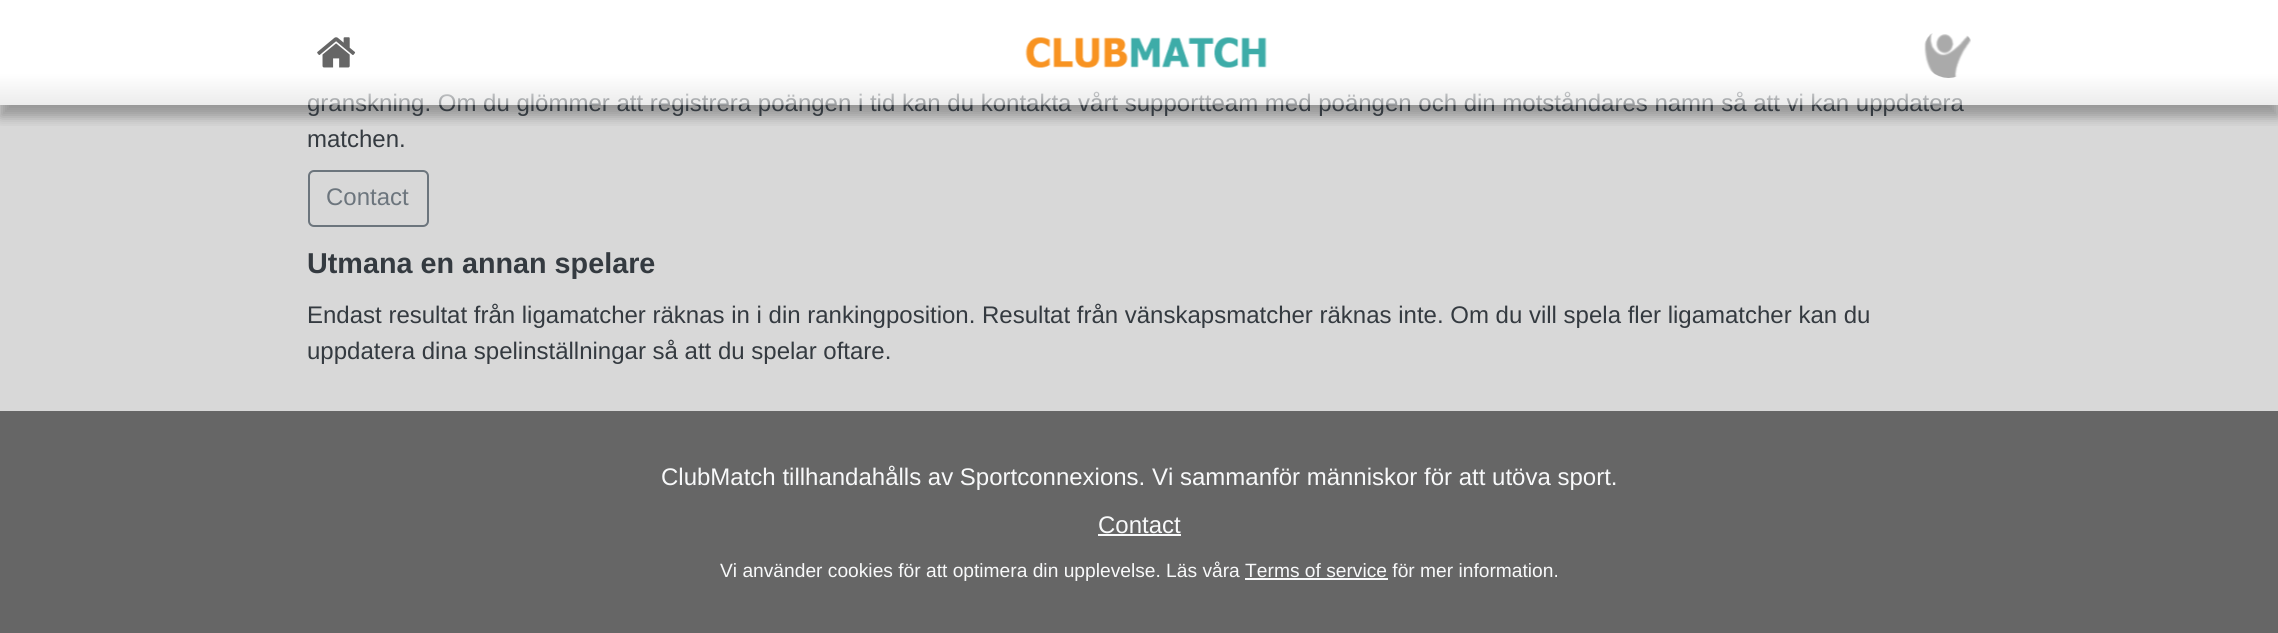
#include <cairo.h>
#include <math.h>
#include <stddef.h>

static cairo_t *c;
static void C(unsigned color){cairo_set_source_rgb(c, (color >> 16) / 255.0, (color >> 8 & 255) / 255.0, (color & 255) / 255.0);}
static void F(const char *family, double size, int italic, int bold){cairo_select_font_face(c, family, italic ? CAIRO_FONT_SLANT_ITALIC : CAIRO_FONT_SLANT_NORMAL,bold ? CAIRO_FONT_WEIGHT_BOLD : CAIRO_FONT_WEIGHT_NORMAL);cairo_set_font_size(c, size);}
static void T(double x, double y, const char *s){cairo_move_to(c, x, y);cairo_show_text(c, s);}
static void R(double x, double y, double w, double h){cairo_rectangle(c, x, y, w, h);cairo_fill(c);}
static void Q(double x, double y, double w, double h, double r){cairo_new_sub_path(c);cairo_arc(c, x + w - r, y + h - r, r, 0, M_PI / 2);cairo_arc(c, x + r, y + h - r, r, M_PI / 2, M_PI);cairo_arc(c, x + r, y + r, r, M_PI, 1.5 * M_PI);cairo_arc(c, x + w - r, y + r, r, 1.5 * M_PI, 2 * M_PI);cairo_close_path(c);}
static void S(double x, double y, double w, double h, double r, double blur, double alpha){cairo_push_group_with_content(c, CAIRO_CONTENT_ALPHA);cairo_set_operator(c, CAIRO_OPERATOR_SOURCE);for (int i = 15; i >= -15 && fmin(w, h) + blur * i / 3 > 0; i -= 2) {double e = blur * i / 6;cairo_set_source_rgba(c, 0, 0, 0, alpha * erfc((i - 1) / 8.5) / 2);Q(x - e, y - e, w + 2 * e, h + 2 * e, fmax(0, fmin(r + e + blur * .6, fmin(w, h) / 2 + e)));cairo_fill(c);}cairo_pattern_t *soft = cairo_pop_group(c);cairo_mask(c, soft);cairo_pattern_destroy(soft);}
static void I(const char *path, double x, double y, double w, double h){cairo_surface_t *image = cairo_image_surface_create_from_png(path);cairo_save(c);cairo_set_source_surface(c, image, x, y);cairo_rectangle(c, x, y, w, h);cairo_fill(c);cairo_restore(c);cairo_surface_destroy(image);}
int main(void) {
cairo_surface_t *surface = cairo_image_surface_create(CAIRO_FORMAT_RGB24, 2278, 633);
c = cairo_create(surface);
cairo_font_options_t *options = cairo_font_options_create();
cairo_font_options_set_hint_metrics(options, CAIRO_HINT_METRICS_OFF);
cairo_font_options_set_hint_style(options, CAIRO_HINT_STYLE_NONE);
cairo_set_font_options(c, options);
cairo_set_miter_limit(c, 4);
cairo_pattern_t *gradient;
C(0x666666);
cairo_paint(c);
C(0xd8d8d8);
R(0,74,2278,337);
cairo_save(c);
cairo_rectangle(c,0,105,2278,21);
cairo_clip(c);
C(0x000000);
S(0,12,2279,105,0,6,.3);
cairo_restore(c);
F("Liberation Sans",24,0,0);
C(0x343a40);
T(307,111,"granskning. Om du glömmer att registrera poängen i tid kan du kontakta vårt supportteam med poängen och din motståndares namn så att vi kan uppdatera");
gradient = cairo_pattern_create_linear(1139,0,1139,105);
cairo_pattern_add_color_stop_rgba(gradient,0,1,1,1,1);
cairo_pattern_add_color_stop_rgba(gradient,.7,1,1,1,1);
cairo_pattern_add_color_stop_rgba(gradient,1,1,1,1,.5);
cairo_set_source(c,gradient);
cairo_pattern_destroy(gradient);
R(0,0,2278,105);
I("1.png",317,37,39,31);
I("2.png",1025,37,242,31);
I("3.png",1924,33,47,45);
C(0x343a40);
T(307,147,"matchen.");
Q(309,171,119,55,5);
C(0x6c757d);
cairo_stroke(c);
T(326,205,"Contact");
F("Liberation Sans",28.75,0,1);
C(0x343a40);
T(307,273,"Utmana en annan spelare");
F("Liberation Sans",24,0,0);
T(307,323,"Endast resultat från ligamatcher räknas in i din rankingposition. Resultat från vänskapsmatcher räknas inte. Om du vill spela fler ligamatcher kan du");
T(307,359,"uppdatera dina spelinställningar så att du spelar oftare.");
C(0xf8f9fa);
T(661,485,"ClubMatch tillhandahålls av Sportconnexions. Vi sammanför människor för att utöva sport.");
T(1098,533,"Contact");
R(1098,534,83,2);
F("Liberation Sans",19.2,0,0);
T(720,577,"Vi använder cookies för att optimera din upplevelse. Läs våra Terms of service för mer information.");
R(1245,578,143,2);
cairo_surface_write_to_png(surface, "o.png");
cairo_font_options_destroy(options);
cairo_destroy(c);
cairo_surface_destroy(surface);
return 0;
}
